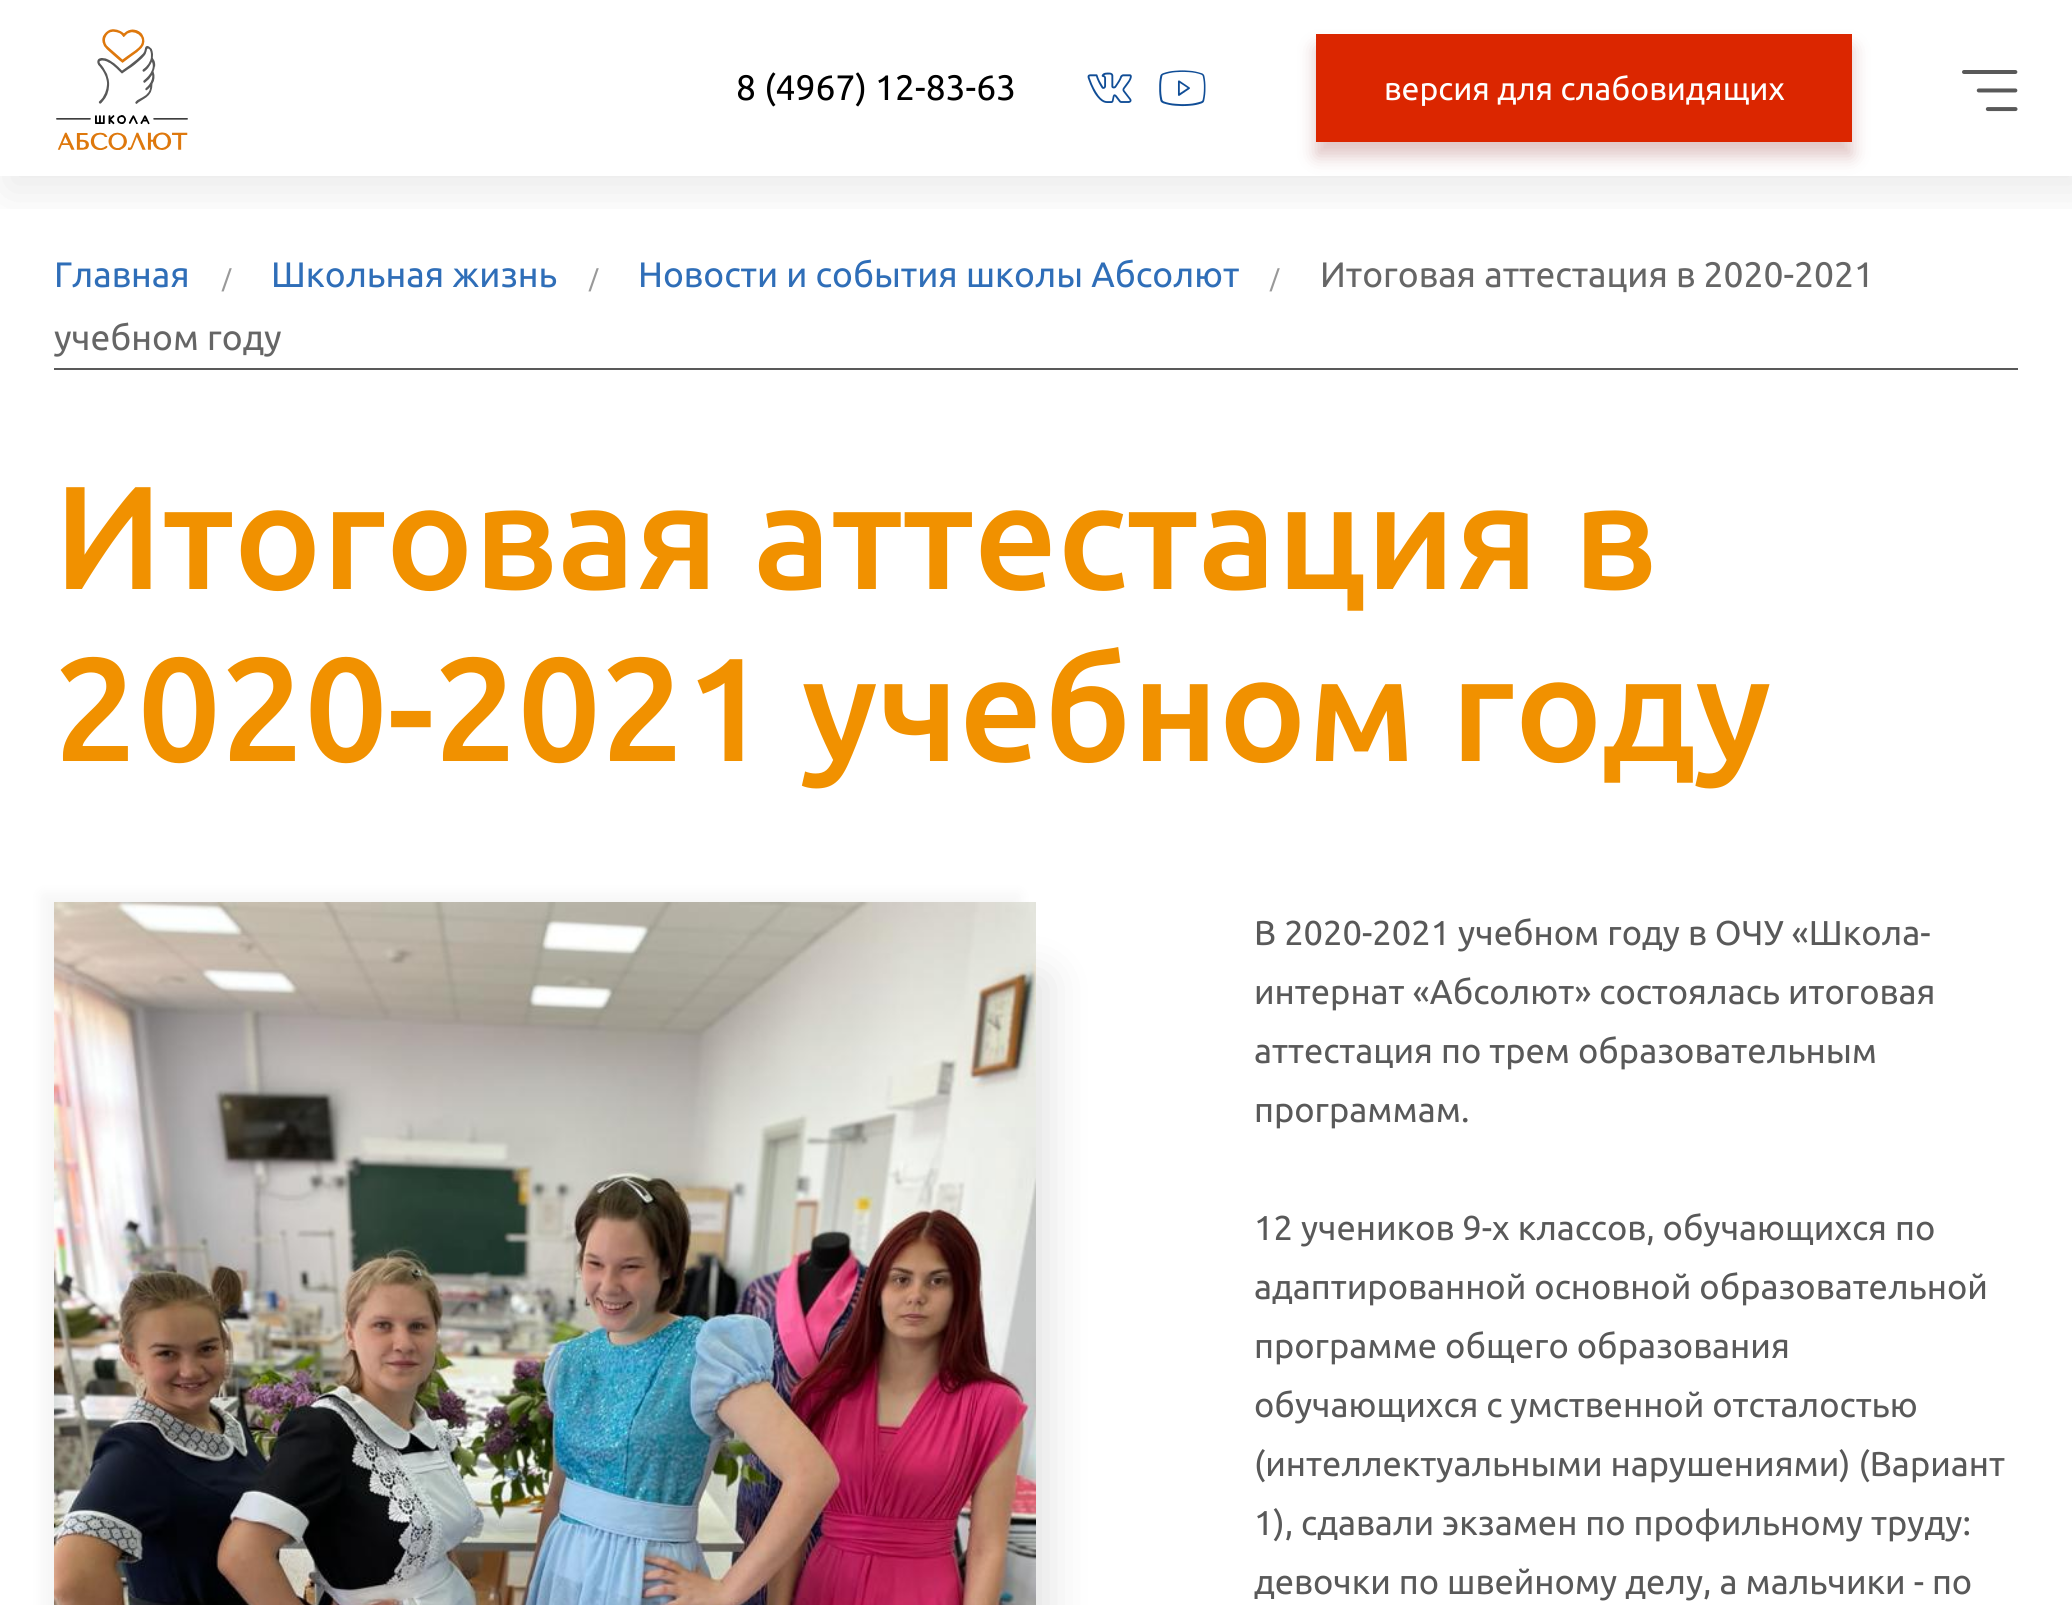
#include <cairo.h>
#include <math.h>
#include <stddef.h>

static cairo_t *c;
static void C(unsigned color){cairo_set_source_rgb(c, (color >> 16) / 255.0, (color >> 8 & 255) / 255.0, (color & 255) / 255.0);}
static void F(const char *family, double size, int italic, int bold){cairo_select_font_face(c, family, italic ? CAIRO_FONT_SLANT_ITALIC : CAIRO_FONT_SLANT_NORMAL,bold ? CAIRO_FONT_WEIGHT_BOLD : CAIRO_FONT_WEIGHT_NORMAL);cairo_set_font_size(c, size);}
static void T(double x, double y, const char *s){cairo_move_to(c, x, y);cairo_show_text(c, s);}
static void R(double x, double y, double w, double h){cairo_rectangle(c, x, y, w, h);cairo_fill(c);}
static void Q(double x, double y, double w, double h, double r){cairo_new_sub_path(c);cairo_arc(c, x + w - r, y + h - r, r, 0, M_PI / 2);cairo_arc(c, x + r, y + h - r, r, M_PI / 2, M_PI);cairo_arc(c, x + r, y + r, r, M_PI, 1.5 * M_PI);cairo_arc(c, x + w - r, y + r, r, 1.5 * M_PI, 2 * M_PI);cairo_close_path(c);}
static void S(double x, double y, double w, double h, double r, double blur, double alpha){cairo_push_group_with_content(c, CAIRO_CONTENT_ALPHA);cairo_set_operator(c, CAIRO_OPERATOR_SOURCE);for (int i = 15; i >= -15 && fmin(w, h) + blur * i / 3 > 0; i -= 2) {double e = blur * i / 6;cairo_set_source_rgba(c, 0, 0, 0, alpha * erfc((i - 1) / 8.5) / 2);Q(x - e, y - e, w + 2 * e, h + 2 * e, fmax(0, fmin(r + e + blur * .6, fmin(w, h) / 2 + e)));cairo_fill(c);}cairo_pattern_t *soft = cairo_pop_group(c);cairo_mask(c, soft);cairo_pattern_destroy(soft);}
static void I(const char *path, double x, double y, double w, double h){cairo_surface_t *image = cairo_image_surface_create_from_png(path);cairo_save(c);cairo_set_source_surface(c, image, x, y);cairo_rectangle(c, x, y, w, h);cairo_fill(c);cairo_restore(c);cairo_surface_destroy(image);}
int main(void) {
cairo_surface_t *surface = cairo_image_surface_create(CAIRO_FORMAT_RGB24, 2072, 1605);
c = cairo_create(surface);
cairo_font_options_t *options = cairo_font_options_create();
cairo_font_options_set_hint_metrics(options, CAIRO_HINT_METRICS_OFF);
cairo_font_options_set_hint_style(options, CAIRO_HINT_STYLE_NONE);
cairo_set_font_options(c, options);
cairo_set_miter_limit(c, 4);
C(0xffffff);
cairo_paint(c);
cairo_save(c);
cairo_rectangle(c,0,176,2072,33);
cairo_clip(c);
C(0x000000);
S(6,10,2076,180,0,25,.09);
cairo_restore(c);
I("1.png",56,29,132,121);
F("Ubuntu",35.4,0,0);
C(0x000000);
T(736,100,"8 (4967) 12-83-63");
I("2.png",1087,72,45,31);
I("3.png",1159,70,47,37);
C(0x760000);
S(1316,48,536,108,0,9,.23);
C(0xdb2600);
R(1316,34,536,108);
F("Ubuntu",32,0,0);
C(0xffffff);
T(1384,100,"версия для слабовидящих");
I("4.png",1962,70,56,42);
C(0x595959);
R(54,368,1964,2);
F("Ubuntu",24,0,0);
C(0x999999);
T(589,287,"/");
F("Ubuntu",35.4,0,0);
C(0x2f6eb8);
T(638,287,"Новости и события школы Абсолют");
F("Ubuntu",24,0,0);
C(0x999999);
T(1270,287,"/");
F("Ubuntu",35.4,0,0);
C(0x666666);
T(1320,287,"Итоговая аттестация в 2020-2021");
T(54,350,"учебном году");
C(0x2f6eb8);
T(54,287,"Главная");
F("Ubuntu",24,0,0);
C(0x999999);
T(222,287,"/");
F("Ubuntu",35.4,0,0);
C(0x2f6eb8);
T(271,287,"Школьная жизнь");
F("Ubuntu Medium",146.9,0,0);
C(0xf19100);
T(54,589,"Итоговая аттестация в");
T(54,761,"2020-2021 учебном году");
C(0x000000);
S(42,894,978,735,0,8,.04);
S(124,978,922,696,0,23,.13);
I("5.png",54,902,982,703);
F("Ubuntu",34.5,0,0);
C(0x595959);
T(1254,945,"В 2020-2021 учебном году в ОЧУ «Школа-");
T(1254,1004,"интернат «Абсолют» состоялась итоговая");
T(1254,1063,"аттестация по трем образовательным");
T(1254,1122,"программам.");
T(1254,1240,"12 учеников 9-х классов, обучающихся по");
T(1254,1299,"адаптированной основной образовательной");
T(1254,1358,"программе общего образования");
T(1254,1417,"обучающихся с умственной отсталостью");
T(1254,1476,"(интеллектуальными нарушениями) (Вариант");
T(1254,1535,"1), сдавали экзамен по профильному труду:");
T(1254,1594,"девочки по швейному делу, а мальчики - по");
cairo_surface_write_to_png(surface, "o.png");
cairo_font_options_destroy(options);
cairo_destroy(c);
cairo_surface_destroy(surface);
return 0;
}
